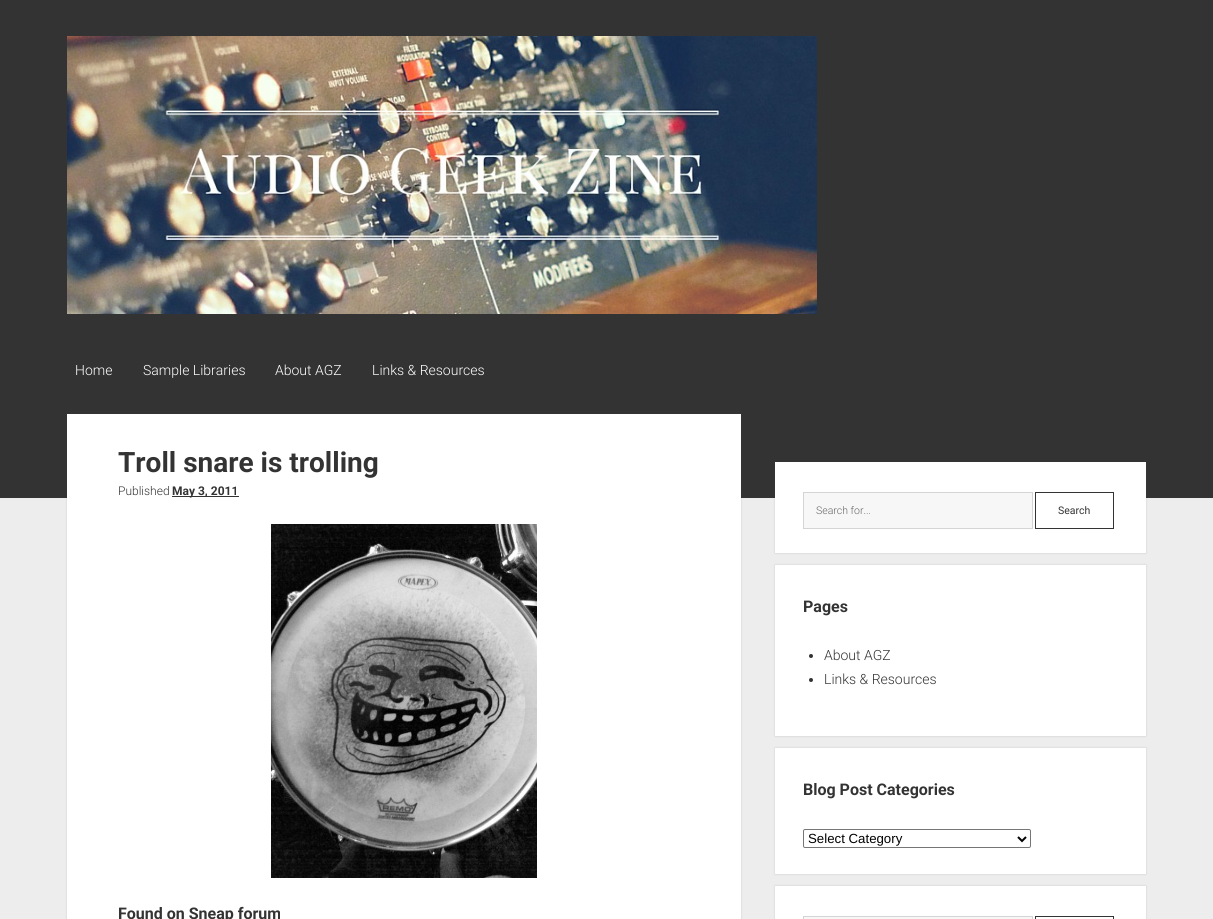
#include <cairo.h>
#include <math.h>
#include <stddef.h>

static cairo_t *c;
static void C(unsigned color){cairo_set_source_rgb(c, (color >> 16) / 255.0, (color >> 8 & 255) / 255.0, (color & 255) / 255.0);}
static void F(const char *family, double size, int italic, int bold){cairo_select_font_face(c, family, italic ? CAIRO_FONT_SLANT_ITALIC : CAIRO_FONT_SLANT_NORMAL,bold ? CAIRO_FONT_WEIGHT_BOLD : CAIRO_FONT_WEIGHT_NORMAL);cairo_set_font_size(c, size);}
static void T(double x, double y, const char *s){cairo_move_to(c, x, y);cairo_show_text(c, s);}
static void R(double x, double y, double w, double h){cairo_rectangle(c, x, y, w, h);cairo_fill(c);}
static void Q(double x, double y, double w, double h, double r){cairo_new_sub_path(c);cairo_arc(c, x + w - r, y + h - r, r, 0, M_PI / 2);cairo_arc(c, x + r, y + h - r, r, M_PI / 2, M_PI);cairo_arc(c, x + r, y + r, r, M_PI, 1.5 * M_PI);cairo_arc(c, x + w - r, y + r, r, 1.5 * M_PI, 2 * M_PI);cairo_close_path(c);}
static void S(double x, double y, double w, double h, double r, double blur, double alpha){cairo_push_group_with_content(c, CAIRO_CONTENT_ALPHA);cairo_set_operator(c, CAIRO_OPERATOR_SOURCE);for (int i = 15; i >= -15 && fmin(w, h) + blur * i / 3 > 0; i -= 2) {double e = blur * i / 6;cairo_set_source_rgba(c, 0, 0, 0, alpha * erfc((i - 1) / 8.5) / 2);Q(x - e, y - e, w + 2 * e, h + 2 * e, fmax(0, fmin(r + e + blur * .6, fmin(w, h) / 2 + e)));cairo_fill(c);}cairo_pattern_t *soft = cairo_pop_group(c);cairo_mask(c, soft);cairo_pattern_destroy(soft);}
static void I(const char *path, double x, double y, double w, double h){cairo_surface_t *image = cairo_image_surface_create_from_png(path);cairo_save(c);cairo_set_source_surface(c, image, x, y);cairo_rectangle(c, x, y, w, h);cairo_fill(c);cairo_restore(c);cairo_surface_destroy(image);}
int main(void) {
cairo_surface_t *surface = cairo_image_surface_create(CAIRO_FORMAT_RGB24, 1213, 919);
c = cairo_create(surface);
cairo_font_options_t *options = cairo_font_options_create();
cairo_font_options_set_hint_metrics(options, CAIRO_HINT_METRICS_OFF);
cairo_font_options_set_hint_style(options, CAIRO_HINT_STYLE_NONE);
cairo_set_font_options(c, options);
cairo_set_miter_limit(c, 4);
C(0xededed);
cairo_paint(c);
C(0x333333);
R(0,0,1213,498);
I("1.png",67,36,750,278);
F("Roboto Light",14,0,0);
C(0xffffff);
T(75,375,"Home");
T(143,375,"Sample Libraries");
T(275,375,"About AGZ");
T(372,375,"Links & Resources");
C(0x3a3a3a);
S(67,414,674,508,0,1,.2);
C(0xffffff);
R(67,414,674,505);
F("Roboto",28,0,1);
C(0x333333);
T(118,472,"Troll snare is trolling");
F("Roboto Light",12,0,0);
T(118,495,"Published");
R(172,496,67,1);
F("Roboto",12,0,1);
T(172,495,"May 3, 2011");
I("2.png",271,524,266,354);
F("Roboto",16,0,1);
T(118,919,"Found on Sneap forum");
C(0x3a3a3a);
S(775,462,371,91,0,1,.2);
C(0xffffff);
R(775,462,371,91);
C(0xf7f7f7);
cairo_rectangle(c,803.5,492.5,229,36);
cairo_fill_preserve(c);
C(0xd4d4d4);
cairo_set_line_width(c,1);
cairo_stroke(c);
F("Roboto Light",10.5,0,0);
C(0x666666);
T(816,514,"Search for...");
cairo_rectangle(c,1035.5,492.5,78,36);
C(0x333333);
cairo_stroke(c);
F("Roboto",10.5,0,0);
T(1058,514,"Search");
C(0x3a3a3a);
S(775,565,371,171,0,1,.2);
C(0xffffff);
R(775,565,371,171);
F("Roboto",16,0,1);
C(0x333333);
T(803,612,"Pages");
cairo_new_path(c);
cairo_arc(c,811,656,2,0,2 * M_PI);
cairo_fill(c);
F("Roboto Light",14,0,0);
T(824,660,"About AGZ");
cairo_new_path(c);
cairo_arc(c,811,680,2,0,2 * M_PI);
cairo_fill(c);
T(824,684,"Links & Resources");
C(0x3a3a3a);
S(775,748,371,126,0,1,.2);
C(0xffffff);
R(775,748,371,126);
F("Roboto",16,0,1);
C(0x333333);
T(803,795,"Blog Post Categories");
Q(803.5,829.5,227,18,1.5);
C(0x767676);
cairo_stroke(c);
cairo_new_path(c);
cairo_move_to(c,1018,837);
cairo_line_to(c,1022,841);
cairo_line_to(c,1026,837);
C(0x000000);
cairo_set_line_width(c,2);
cairo_stroke(c);
F("Liberation Sans",13.25,0,0);
T(808,843,"Select Category");
C(0x3a3a3a);
S(775,886,371,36,0,1,.2);
C(0xffffff);
R(775,886,371,33);
C(0xf7f7f7);
cairo_rectangle(c,803.5,916.5,229,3);
cairo_fill_preserve(c);
C(0xd4d4d4);
cairo_set_line_width(c,1);
cairo_stroke(c);
cairo_rectangle(c,1035.5,916.5,78,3);
C(0x333333);
cairo_stroke(c);
cairo_surface_write_to_png(surface, "o.png");
cairo_font_options_destroy(options);
cairo_destroy(c);
cairo_surface_destroy(surface);
return 0;
}
